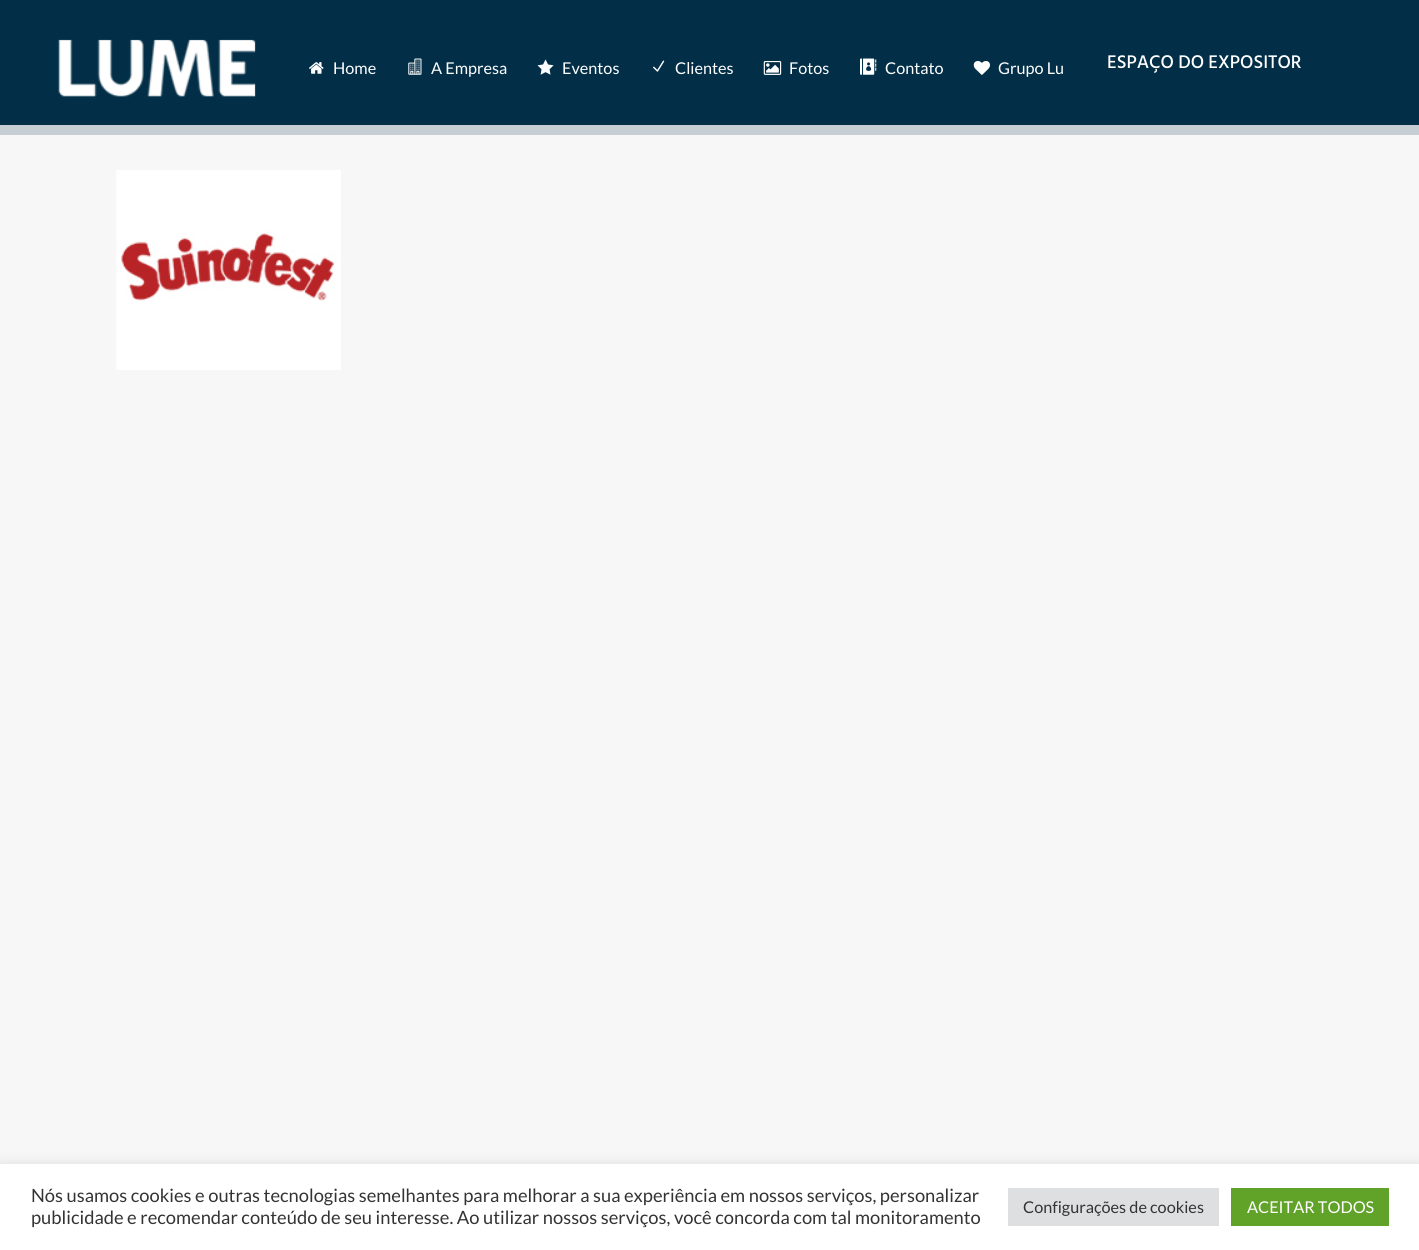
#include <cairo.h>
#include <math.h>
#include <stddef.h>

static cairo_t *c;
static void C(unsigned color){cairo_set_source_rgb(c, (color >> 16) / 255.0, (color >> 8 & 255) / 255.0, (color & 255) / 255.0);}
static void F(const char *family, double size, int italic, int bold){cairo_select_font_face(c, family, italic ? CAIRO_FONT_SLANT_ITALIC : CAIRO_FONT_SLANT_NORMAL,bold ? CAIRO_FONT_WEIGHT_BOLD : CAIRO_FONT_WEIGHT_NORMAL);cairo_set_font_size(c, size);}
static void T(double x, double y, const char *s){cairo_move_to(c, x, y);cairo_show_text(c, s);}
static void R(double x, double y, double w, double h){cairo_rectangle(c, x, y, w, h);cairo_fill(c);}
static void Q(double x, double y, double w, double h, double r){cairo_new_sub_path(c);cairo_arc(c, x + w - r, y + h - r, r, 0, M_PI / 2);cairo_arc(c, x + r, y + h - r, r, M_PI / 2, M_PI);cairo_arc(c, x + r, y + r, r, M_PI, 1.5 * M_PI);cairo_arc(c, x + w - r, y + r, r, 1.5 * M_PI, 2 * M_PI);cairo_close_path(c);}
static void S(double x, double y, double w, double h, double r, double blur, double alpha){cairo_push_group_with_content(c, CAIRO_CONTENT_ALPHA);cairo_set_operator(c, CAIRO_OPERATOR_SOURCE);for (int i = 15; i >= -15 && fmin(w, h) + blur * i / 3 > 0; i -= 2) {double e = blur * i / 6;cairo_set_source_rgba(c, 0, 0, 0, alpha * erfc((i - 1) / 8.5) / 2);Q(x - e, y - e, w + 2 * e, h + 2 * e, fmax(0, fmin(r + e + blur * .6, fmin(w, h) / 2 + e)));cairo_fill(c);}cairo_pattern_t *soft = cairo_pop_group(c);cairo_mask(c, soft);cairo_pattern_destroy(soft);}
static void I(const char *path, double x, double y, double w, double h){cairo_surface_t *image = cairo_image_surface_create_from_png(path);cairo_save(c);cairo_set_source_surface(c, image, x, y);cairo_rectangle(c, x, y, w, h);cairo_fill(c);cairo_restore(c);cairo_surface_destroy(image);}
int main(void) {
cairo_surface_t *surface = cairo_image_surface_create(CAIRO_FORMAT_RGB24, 1419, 1250);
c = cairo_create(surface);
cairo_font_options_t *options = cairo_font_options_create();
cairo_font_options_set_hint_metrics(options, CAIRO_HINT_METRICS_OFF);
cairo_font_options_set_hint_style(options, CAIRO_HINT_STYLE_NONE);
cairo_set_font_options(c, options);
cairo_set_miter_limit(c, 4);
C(0xf7f7f7);
cairo_paint(c);
C(0xc6ced4);
R(0,125,1419,10);
C(0x022f47);
R(0,0,1419,125);
I("1.png",116,170,225,200);
I("2.png",58,39,198,58);
I("3.png",309,62,15,12);
F("Lato",16.25,0,0);
C(0xffffff);
T(333,74,"Home");
I("4.png",408,58,14,17);
T(431,74,"A Empresa");
I("5.png",537,59,17,16);
T(562,74,"Eventos");
I("6.png",653,60,12,12);
T(675,74,"Clientes");
I("7.png",763,61,19,14);
T(789,74,"Fotos");
I("8.png",860,58,17,17);
T(885,74,"Contato");
I("9.png",973,61,17,14);
T(998,74,"Grupo Lu");
F("Hind Siliguri Medium",18.75,0,0);
T(1107,68,"ESPAÇO DO EXPOSITOR");
C(0xacabab);
S(0,1163,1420,86,0,6,.3);
C(0xffffff);
R(0,1164,1419,86);
F("Lato",18.33,0,0);
C(0x333333);
T(31,1202,"Nós usamos cookies e outras tecnologias semelhantes para melhorar a sua experiência em nossos serviços, personalizar");
T(31,1224,"publicidade e recomendar conteúdo de seu interesse. Ao utilizar nossos serviços, você concorda com tal monitoramento");
C(0xdedfe0);
R(1008,1188,211,38);
F("Lato",16.25,0,0);
C(0x333333);
T(1023,1213,"Configurações de cookies");
C(0x61a229);
R(1231,1188,158,38);
C(0xffffff);
T(1247,1213,"ACEITAR TODOS");
cairo_surface_write_to_png(surface, "o.png");
cairo_font_options_destroy(options);
cairo_destroy(c);
cairo_surface_destroy(surface);
return 0;
}
